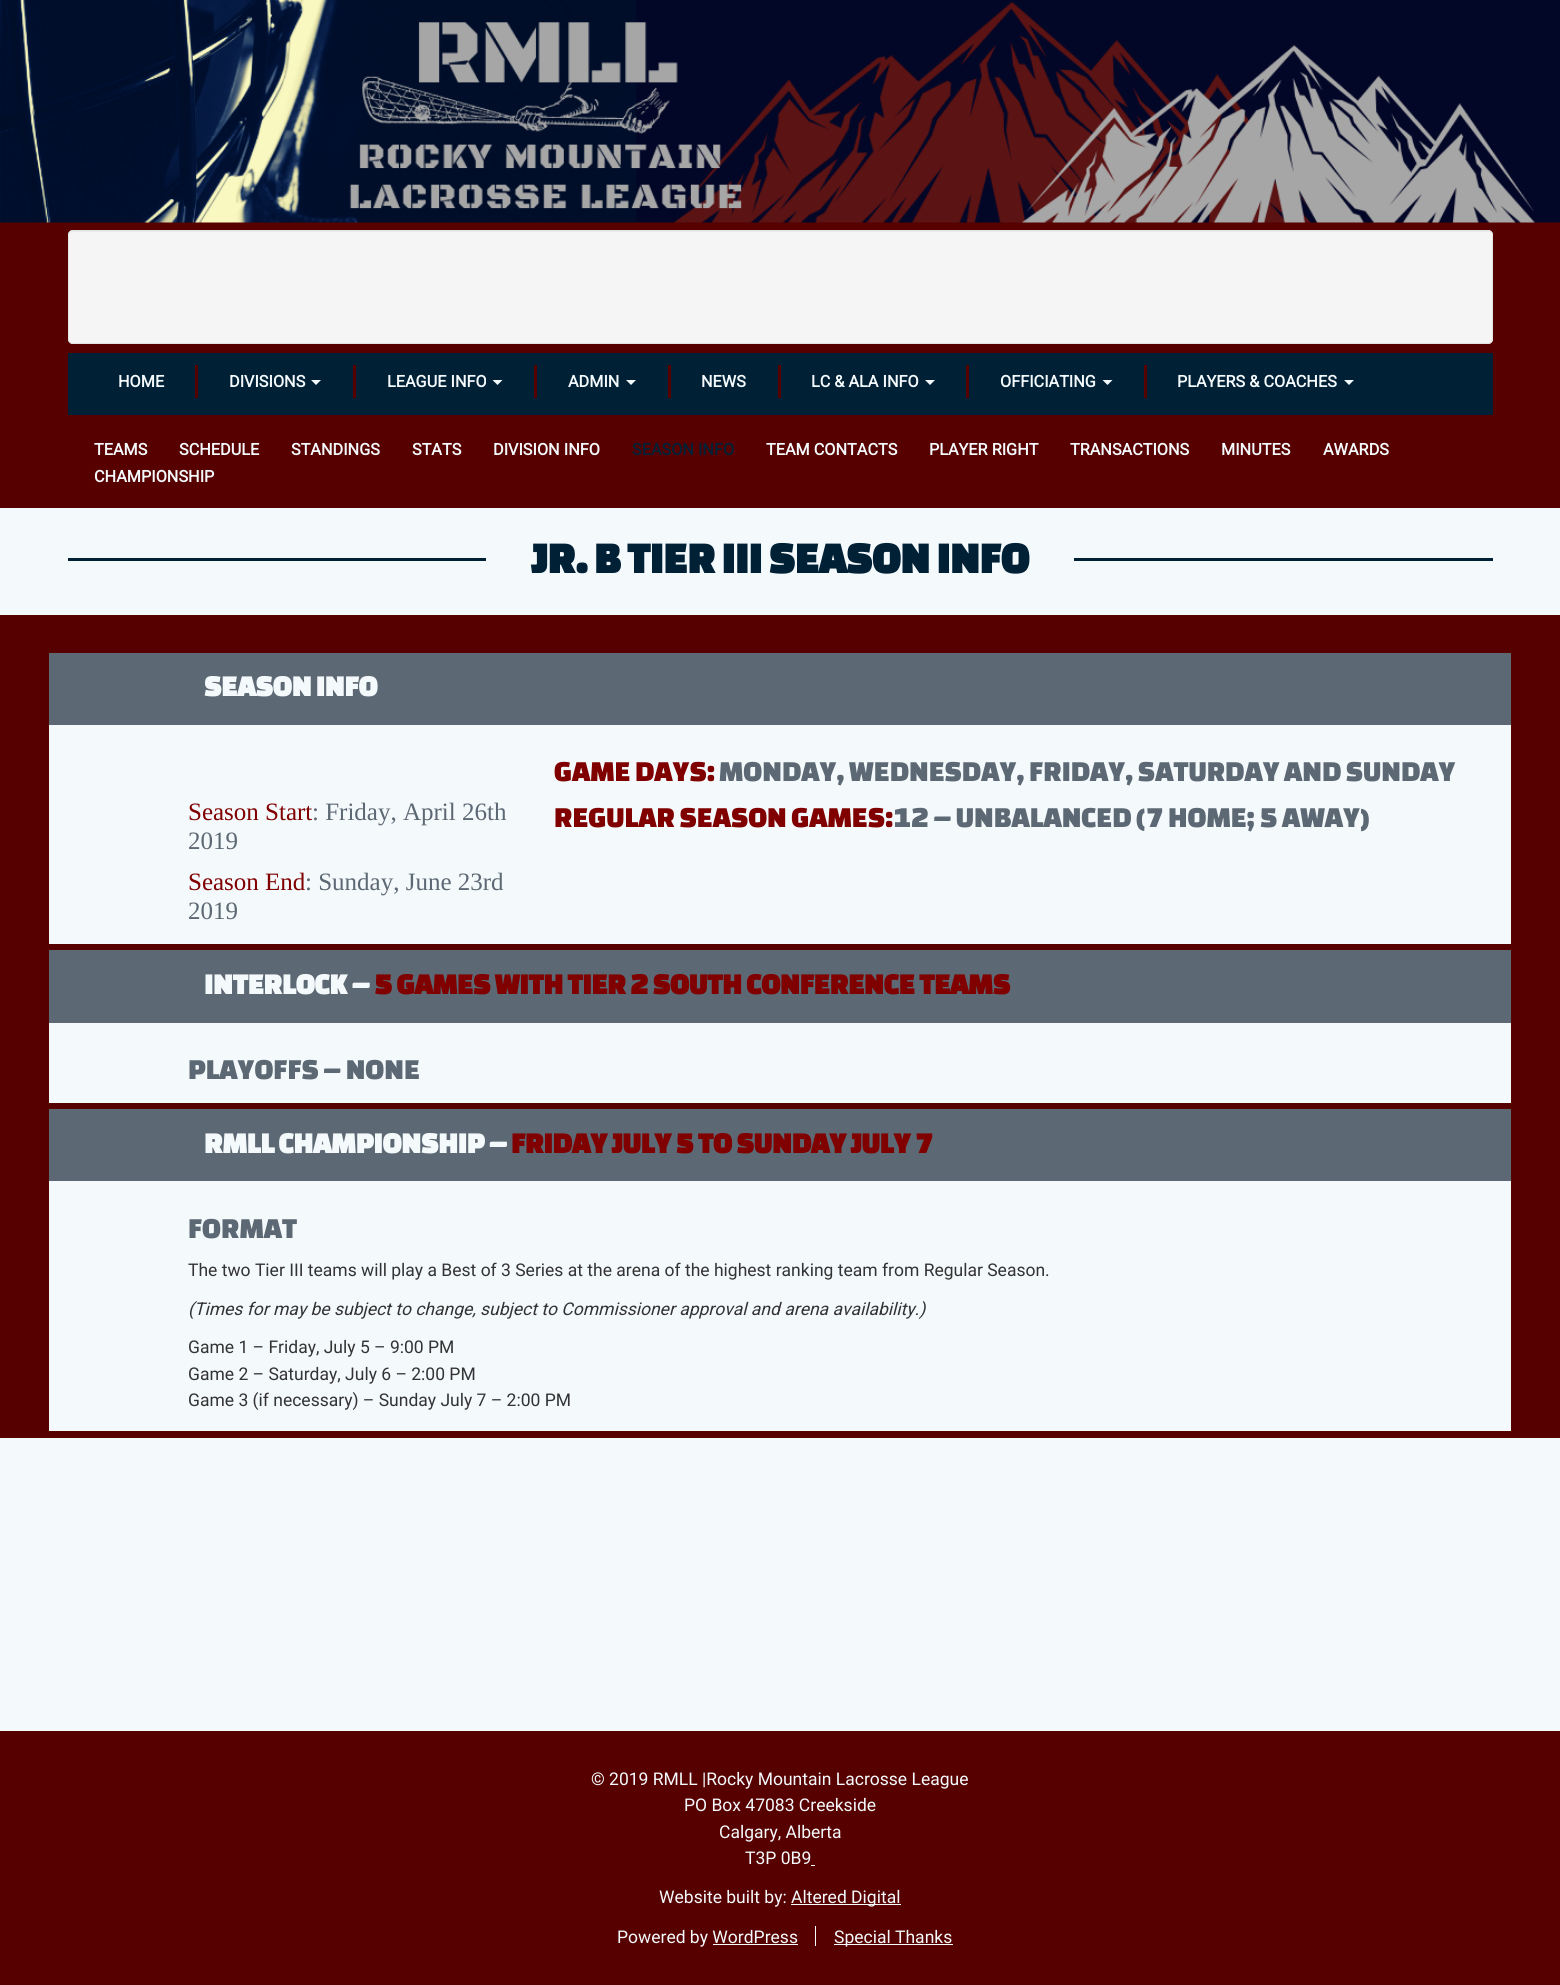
#include <cairo.h>
#include <math.h>
#include <stddef.h>

static cairo_t *c;
static void C(unsigned color){cairo_set_source_rgb(c, (color >> 16) / 255.0, (color >> 8 & 255) / 255.0, (color & 255) / 255.0);}
static void F(const char *family, double size, int italic, int bold){cairo_select_font_face(c, family, italic ? CAIRO_FONT_SLANT_ITALIC : CAIRO_FONT_SLANT_NORMAL,bold ? CAIRO_FONT_WEIGHT_BOLD : CAIRO_FONT_WEIGHT_NORMAL);cairo_set_font_size(c, size);}
static void T(double x, double y, const char *s){cairo_move_to(c, x, y);cairo_show_text(c, s);}
static void R(double x, double y, double w, double h){cairo_rectangle(c, x, y, w, h);cairo_fill(c);}
static void Q(double x, double y, double w, double h, double r){cairo_new_sub_path(c);cairo_arc(c, x + w - r, y + h - r, r, 0, M_PI / 2);cairo_arc(c, x + r, y + h - r, r, M_PI / 2, M_PI);cairo_arc(c, x + r, y + r, r, M_PI, 1.5 * M_PI);cairo_arc(c, x + w - r, y + r, r, 1.5 * M_PI, 2 * M_PI);cairo_close_path(c);}
static void I(const char *path, double x, double y, double w, double h){cairo_surface_t *image = cairo_image_surface_create_from_png(path);cairo_save(c);cairo_set_source_surface(c, image, x, y);cairo_rectangle(c, x, y, w, h);cairo_fill(c);cairo_restore(c);cairo_surface_destroy(image);}
int main(void) {
cairo_surface_t *surface = cairo_image_surface_create(CAIRO_FORMAT_RGB24, 1560, 1985);
c = cairo_create(surface);
cairo_font_options_t *options = cairo_font_options_create();
cairo_font_options_set_hint_metrics(options, CAIRO_HINT_METRICS_OFF);
cairo_font_options_set_hint_style(options, CAIRO_HINT_STYLE_NONE);
cairo_set_font_options(c, options);
cairo_set_miter_limit(c, 4);
C(0x560000);
cairo_paint(c);
I("1.png",0,0,1560,223);
C(0xf5f5f5);
Q(68,230,1425,114,5);
cairo_fill(c);
C(0xe9e9e9);
cairo_new_path(c);
cairo_move_to(c,72,232);
cairo_line_to(c,1488,232);
cairo_curve_to(c,1490,232,1491,234,1491,236);
cairo_line_to(c,1491,235);
cairo_curve_to(c,1491,233,1489,231,1487,231);
cairo_line_to(c,73,231);
cairo_curve_to(c,71,231,69,233,69,235);
cairo_line_to(c,69,236);
cairo_curve_to(c,69,234,70,232,72,232);
cairo_close_path(c);
cairo_fill(c);
Q(68.5,230.5,1424,113,4.5);
C(0xe3e3e3);
cairo_set_line_width(c,1);
cairo_stroke(c);
C(0x002035);
R(68,353,1425,62);
C(0x560000);
R(195,365,3,33);
F("Roboto",16.25,0,1);
C(0xf4f9fc);
T(118,387,"HOME");
C(0x560000);
R(353,365,3,33);
C(0xf4f9fc);
T(229,387,"DIVISIONS");
cairo_new_path(c);
cairo_move_to(c,311,380);
cairo_line_to(c,321,380);
cairo_line_to(c,316,385);
cairo_close_path(c);
cairo_fill(c);
C(0x560000);
R(534,365,3,33);
C(0xf4f9fc);
T(387,387,"LEAGUE INFO");
cairo_new_path(c);
cairo_move_to(c,492.5,380);
cairo_line_to(c,502.5,380);
cairo_line_to(c,497.5,385);
cairo_close_path(c);
cairo_fill(c);
C(0x560000);
R(668,365,3,33);
C(0xf4f9fc);
T(568,387,"ADMIN");
cairo_new_path(c);
cairo_move_to(c,626,380);
cairo_line_to(c,636,380);
cairo_line_to(c,631,385);
cairo_close_path(c);
cairo_fill(c);
C(0x560000);
R(778,365,3,33);
C(0xf4f9fc);
T(701,387,"NEWS");
C(0x560000);
R(966,365,3,33);
C(0xf4f9fc);
T(811,387,"LC & ALA INFO");
cairo_new_path(c);
cairo_move_to(c,925,380);
cairo_line_to(c,935,380);
cairo_line_to(c,930,385);
cairo_close_path(c);
cairo_fill(c);
C(0x560000);
R(1144,365,3,33);
C(0xf4f9fc);
T(1000,387,"OFFICIATING");
cairo_new_path(c);
cairo_move_to(c,1102.5,380);
cairo_line_to(c,1112.5,380);
cairo_line_to(c,1107.5,385);
cairo_close_path(c);
cairo_fill(c);
T(1177,387,"PLAYERS & COACHES");
cairo_new_path(c);
cairo_move_to(c,1344,380);
cairo_line_to(c,1354,380);
cairo_line_to(c,1349,385);
cairo_close_path(c);
cairo_fill(c);
T(94,455,"TEAMS");
T(179,455,"SCHEDULE");
T(291,455,"STANDINGS");
T(412,455,"STATS");
T(493,455,"DIVISION INFO");
C(0x002035);
T(632,455,"SEASON INFO");
C(0xf4f9fc);
T(766,455,"TEAM CONTACTS");
T(929,455,"PLAYER RIGHT");
T(1070,455,"TRANSACTIONS");
T(1221,455,"MINUTES");
T(1323,455,"AWARDS");
T(94,482,"CHAMPIONSHIP");
R(0,508,1560,107);
C(0x002035);
R(68,558,1425,3);
C(0xf4f9fc);
R(486,558,588,3);
F("Changa One",45,0,1);
C(0x002035);
T(531,573,"JR. B TIER III SEASON INFO");
C(0x5c6873);
R(49,653,1462,72);
F("Changa One",30,0,1);
C(0xf4f9fc);
T(204,696,"SEASON INFO");
R(49,725,1462,219);
F("Liberation Serif",25,0,0);
C(0x800000);
T(188,820,"Season Start");
C(0x5c6873);
T(312,820,": Friday, April 26th");
T(188,849,"2019");
C(0x800000);
T(188,890,"Season End");
C(0x5c6873);
T(305,890,": Sunday, June 23rd");
T(188,919,"2019");
F("Changa One",30,0,0);
C(0x800000);
T(554,781,"GAME DAYS:");
C(0x5c6873);
T(719,781,"MONDAY, WEDNESDAY, FRIDAY, SATURDAY AND SUNDAY");
C(0x800000);
T(554,827,"REGULAR SEASON GAMES:");
C(0x5c6873);
T(893,827,"12 – UNBALANCED (7 HOME; 5 AWAY)");
R(49,950,1462,73);
F("Changa One",30,0,1);
C(0xf4f9fc);
T(204,994,"INTERLOCK –");
C(0x800000);
T(374,994,"5 GAMES WITH TIER 2 SOUTH CONFERENCE TEAMS");
C(0xf4f9fc);
R(49,1023,1462,80);
F("Changa One",30,0,0);
C(0x5c6873);
T(188,1079,"PLAYOFFS – NONE");
R(49,1109,1462,72);
F("Changa One",30,0,1);
C(0xf4f9fc);
T(204,1153,"RMLL CHAMPIONSHIP –");
C(0x800000);
T(511,1153,"FRIDAY JULY 5 TO SUNDAY JULY 7");
C(0xf4f9fc);
R(49,1181,1462,250);
F("Changa One",30,0,0);
C(0x5c6873);
T(188,1238,"FORMAT");
F("Roboto",17.5,0,0);
C(0x333333);
T(188,1276,"The two Tier III teams will play a Best of 3 Series at the arena of the highest ranking team from Regular Season.");
F("Roboto",17.5,1,0);
T(188,1315,"(Times for may be subject to change, subject to Commissioner approval and arena availability.)");
F("Roboto",17.5,0,0);
T(188,1353,"Game 1 – Friday, July 5 – 9:00 PM");
T(188,1380,"Game 2 – Saturday, July 6 – 2:00 PM");
T(188,1406,"Game 3 (if necessary) – Sunday July 7 – 2:00 PM");
C(0xf4f9fc);
R(0,1438,1560,293);
T(591,1785,"© 2019 RMLL |Rocky Mountain Lacrosse League");
T(684,1811,"PO Box 47083 Creekside");
T(719,1838,"Calgary, Alberta");
T(745,1864,"T3P 0B9");
R(811,1865,4,1);
T(659,1903,"Website built by:");
R(791,1904,110,1);
T(791,1903,"Altered Digital");
T(617,1943,"Powered by WordPress");
R(713,1944,85,1);
R(815,1926,1,20);
R(834,1944,119,1);
T(834,1943,"Special Thanks");
cairo_surface_write_to_png(surface, "o.png");
cairo_font_options_destroy(options);
cairo_destroy(c);
cairo_surface_destroy(surface);
return 0;
}
